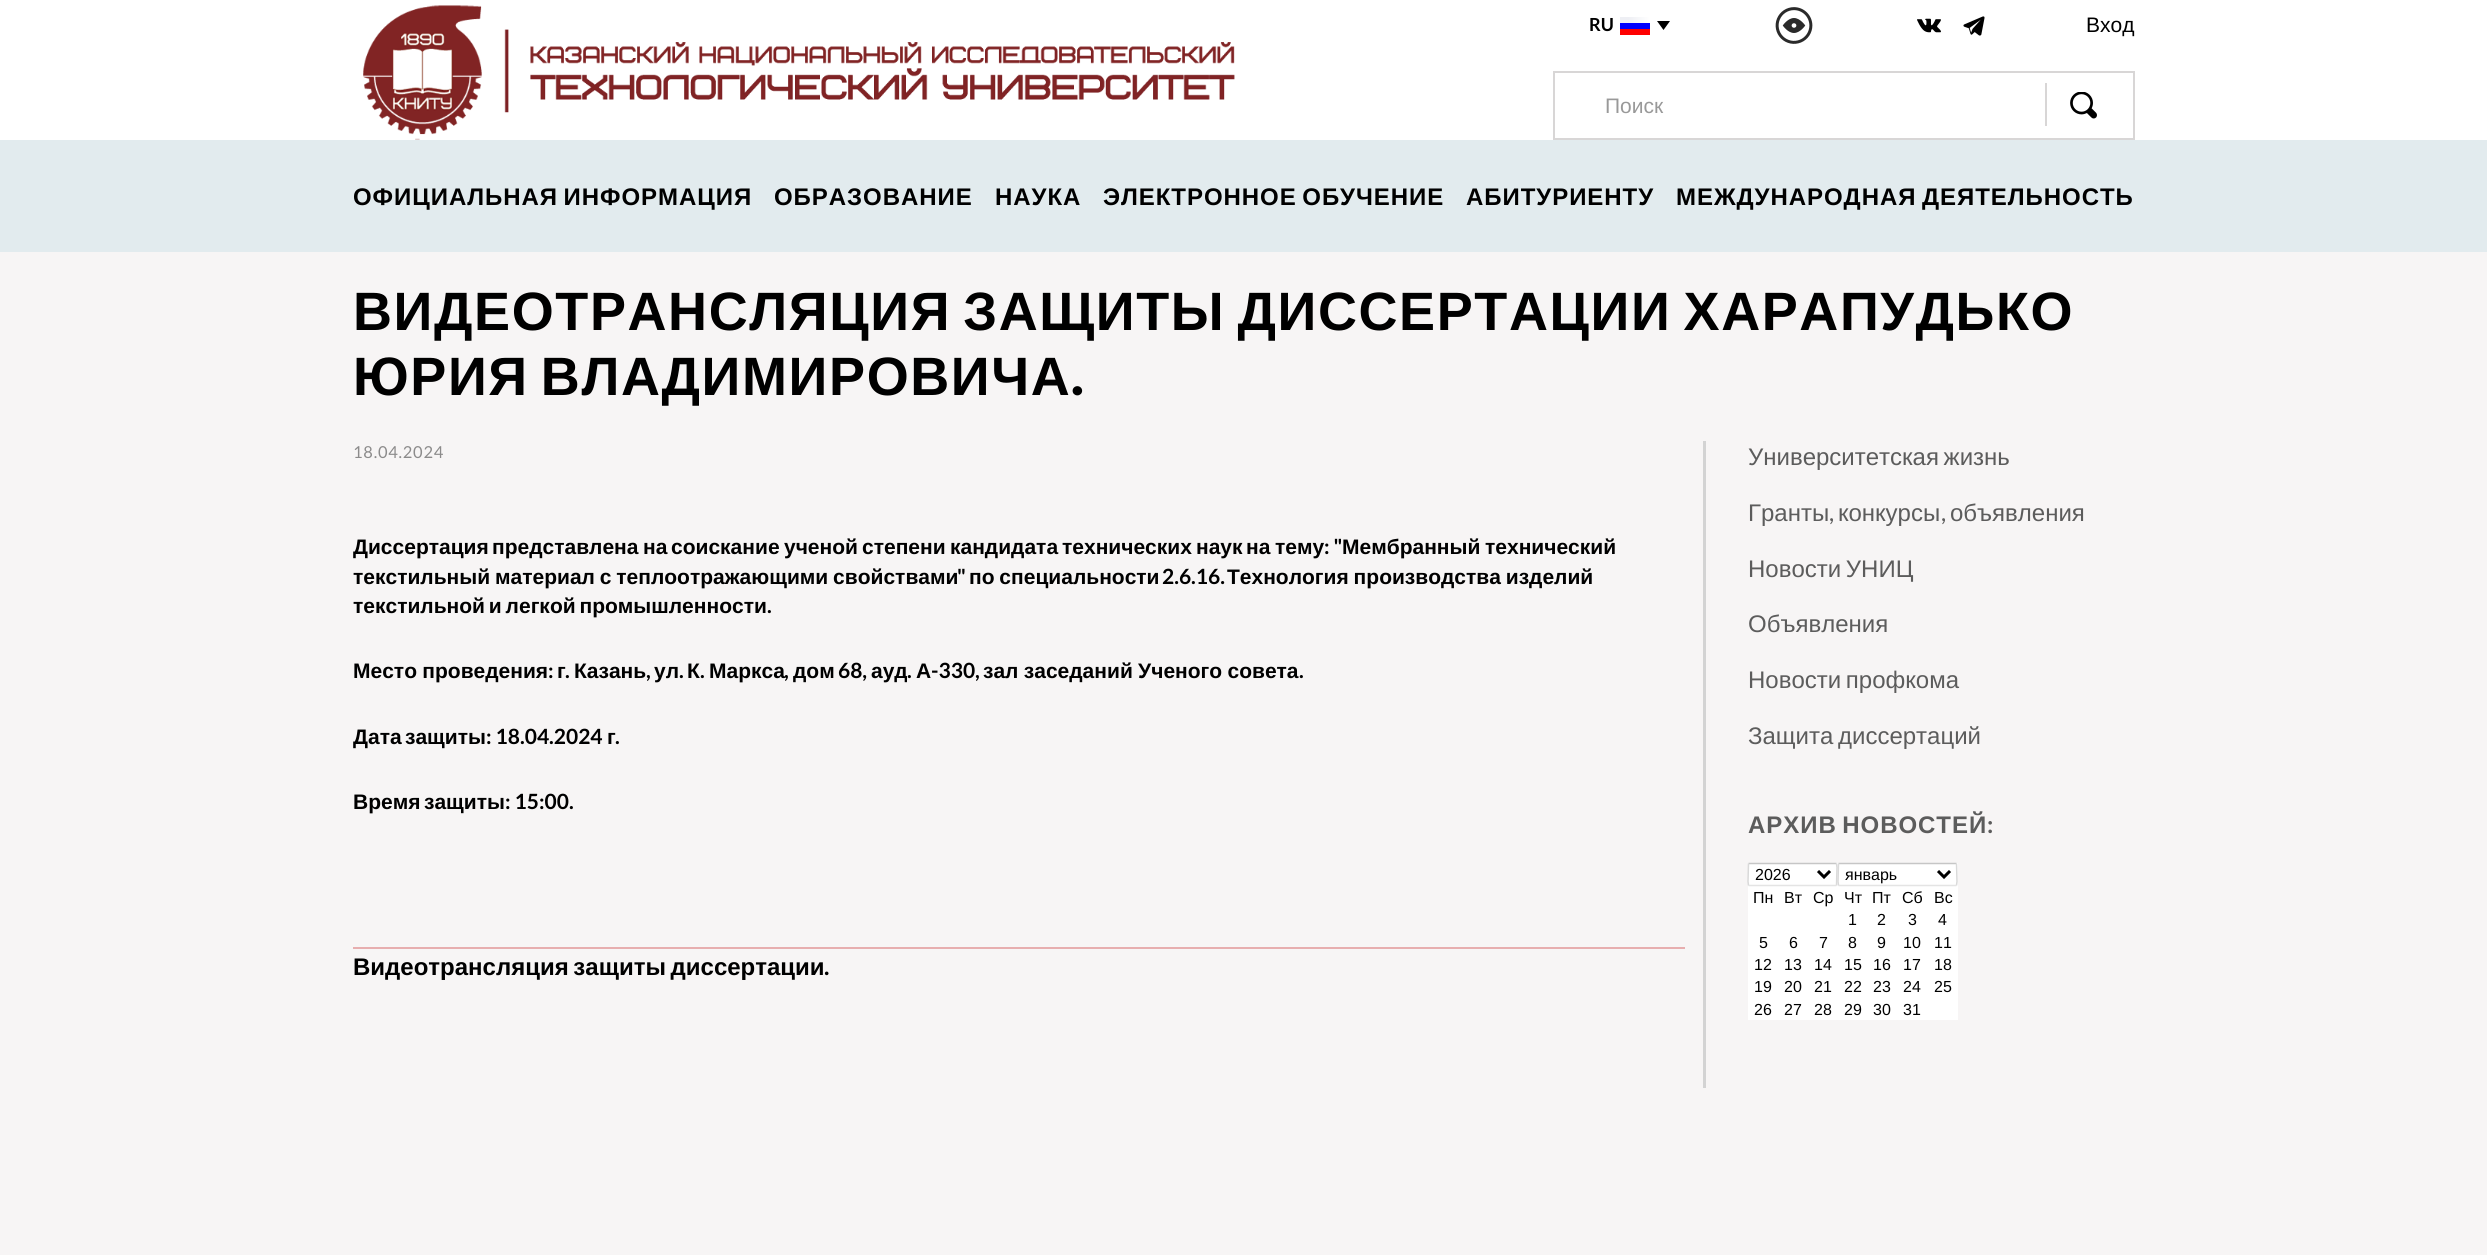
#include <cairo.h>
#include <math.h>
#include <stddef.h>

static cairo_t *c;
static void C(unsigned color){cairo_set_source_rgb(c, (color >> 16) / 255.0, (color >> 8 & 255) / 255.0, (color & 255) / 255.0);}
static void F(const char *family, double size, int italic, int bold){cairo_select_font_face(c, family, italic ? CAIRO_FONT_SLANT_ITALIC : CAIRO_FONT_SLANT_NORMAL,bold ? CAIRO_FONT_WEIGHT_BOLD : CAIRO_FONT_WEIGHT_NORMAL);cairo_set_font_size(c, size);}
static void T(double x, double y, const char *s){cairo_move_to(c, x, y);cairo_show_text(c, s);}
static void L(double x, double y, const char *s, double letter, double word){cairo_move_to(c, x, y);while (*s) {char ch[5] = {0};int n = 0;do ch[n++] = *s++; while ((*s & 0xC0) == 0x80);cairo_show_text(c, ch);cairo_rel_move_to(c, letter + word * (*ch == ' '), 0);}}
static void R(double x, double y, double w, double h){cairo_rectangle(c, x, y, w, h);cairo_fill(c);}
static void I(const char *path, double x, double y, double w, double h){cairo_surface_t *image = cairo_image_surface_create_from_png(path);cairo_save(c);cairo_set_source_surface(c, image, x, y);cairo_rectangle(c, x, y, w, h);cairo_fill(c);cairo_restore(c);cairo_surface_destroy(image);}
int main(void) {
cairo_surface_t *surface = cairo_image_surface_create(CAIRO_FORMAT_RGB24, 2487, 1255);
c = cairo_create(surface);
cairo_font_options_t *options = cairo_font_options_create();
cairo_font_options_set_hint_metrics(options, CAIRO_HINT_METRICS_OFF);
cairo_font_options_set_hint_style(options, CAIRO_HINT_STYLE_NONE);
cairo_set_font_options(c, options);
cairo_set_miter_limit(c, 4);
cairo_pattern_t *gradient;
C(0xffffff);
cairo_paint(c);
I("1.png",363,5,872,135);
F("Lato",18,0,1);
C(0x000000);
T(1589,31,"RU");
C(0xfe0000);
R(1620,29,30,6);
C(0x0000fe);
R(1620,23,30,6);
gradient = cairo_pattern_create_linear(1628,23,1650,23);
cairo_pattern_add_color_stop_rgba(gradient,0,0.933,0.937,0.957,1);
cairo_pattern_add_color_stop_rgba(gradient,1,1,1,1,1);
cairo_set_source(c,gradient);
cairo_pattern_destroy(gradient);
R(1620,17,30,6);
C(0x000000);
cairo_new_path(c);
cairo_move_to(c,1663.5,30);
cairo_line_to(c,1657,21);
cairo_line_to(c,1670,21);
cairo_close_path(c);
cairo_fill(c);
I("2.png",1775,7,38,37);
I("3.png",1917,18,24,15);
I("4.png",1963,16,22,20);
F("Liberation Sans",21,0,0);
T(2086,32,"Вход");
cairo_rectangle(c,1554,72,580,67);
C(0xd8d6d6);
cairo_stroke(c);
C(0x999999);
T(1605,113,"Поиск");
C(0xd8d6d6);
R(2045,83,2,43);
I("5.png",2070,92,27,27);
C(0xe2ebee);
R(0,140,2487,112);
F("Liberation Sans",24,0,1);
C(0x000000);
L(353,205,"ОФИЦИАЛЬНАЯ ИНФОРМАЦИЯ",.95,-2);
L(774,205,"ОБРАЗОВАНИЕ",.95,0);
L(995,205,"НАУКА",.95,0);
L(1103,205,"ЭЛЕКТРОННОЕ ОБУЧЕНИЕ",.95,-2);
L(1466,205,"АБИТУРИЕНТУ",.95,0);
L(1676,205,"МЕЖДУНАРОДНАЯ ДЕЯТЕЛЬНОСТЬ",.95,-2);
C(0xf7f5f5);
R(0,252,2487,1003);
F("Liberation Sans",54,0,1);
C(0x000000);
L(353,330,"ВИДЕОТРАНСЛЯЦИЯ ЗАЩИТЫ ДИССЕРТАЦИИ ХАРАПУДЬКО",1.6,-4.5);
L(353,395,"ЮРИЯ ВЛАДИМИРОВИЧА",1.6,-4.5);
F("Lato Black",54,0,0);
L(1071,395,".",1.6,0);
F("Lato",16.5,0,0);
C(0x8c8b8b);
L(353,458,"18.04.2024",.75,0);
F("Liberation Sans",21,0,1);
C(0x000000);
T(353,554,"Диссертация");
T(492,554,"представлена");
T(643,554,"на");
T(671,554,"соискание");
T(784,554,"ученой");
T(862,554,"степени");
T(950,554,"кандидата");
T(1062,554,"технических");
T(1196,554,"наук");
T(1246,554,"на");
T(1275,554,"тему");
F("Lato",21,0,1);
T(1324,554,": \"");
F("Liberation Sans",21,0,1);
T(1342,554,"Мембранный");
T(1485,554,"технический");
L(353,584,"текстильный материал с теплоотражающими свойствами",0,-1);
F("Lato",21,0,1);
T(957,584,"\"");
F("Liberation Sans",21,0,1);
L(969,584,"по специальности",0,-1);
F("Lato",21,0,1);
T(1162,584,"2.6.16.");
F("Liberation Sans",21,0,1);
L(1227,584,"Технология производства изделий",0,-1);
L(353,613,"текстильной и легкой промышленности",0,-2);
F("Lato",21,0,1);
T(767,613,".");
F("Liberation Sans",21,0,1);
L(353,678,"Место проведения",0,-.5);
F("Lato",21,0,1);
T(548,678,":");
F("Liberation Sans",21,0,1);
T(557,678,"г");
F("Lato",21,0,1);
T(565,678,".");
F("Liberation Sans",21,0,1);
T(574,678,"Казань");
F("Lato",21,0,1);
T(646,678,",");
F("Liberation Sans",21,0,1);
T(654,678,"ул");
F("Lato",21,0,1);
T(679,678,".");
F("Liberation Sans",21,0,1);
T(687,678,"К");
F("Lato",21,0,1);
T(700,678,".");
F("Liberation Sans",21,0,1);
T(709,678,"Маркса");
F("Lato",21,0,1);
T(784,678,",");
F("Liberation Sans",21,0,1);
T(793,678,"дом");
F("Lato",21,0,1);
T(838,678,"68,");
F("Liberation Sans",21,0,1);
T(871,678,"ауд");
F("Lato",21,0,1);
T(907,678,".");
F("Liberation Sans",21,0,1);
T(916,678,"А");
F("Lato",21,0,1);
T(931,678,"-330,");
F("Liberation Sans",21,0,1);
L(983,678,"зал заседаний Ученого совета",0,-.5);
F("Lato",21,0,1);
T(1299,678,".");
F("Liberation Sans",21,0,1);
T(353,744,"Дата");
T(405,744,"защиты");
F("Lato",21,0,1);
T(486,744,": 18.04.2024");
F("Liberation Sans",21,0,1);
T(607,744,"г");
F("Lato",21,0,1);
T(615,744,".");
F("Liberation Sans",21,0,1);
T(353,809,"Время");
T(424,809,"защиты");
F("Lato",21,0,1);
T(505,809,": 15:00.");
C(0xe7aeaf);
R(353,947,1332,2);
F("Liberation Sans",24,0,1);
C(0x000000);
L(353,975,"Видеотрансляция защиты диссертации",0,-2);
F("Lato",24,0,1);
T(824,975,".");
C(0xd3d3d3);
R(1703,441,3,647);
F("Liberation Sans",24,0,0);
C(0x5c5c5c);
L(1748,465,"Университетская жизнь",0,-2);
T(1748,521,"Гранты");
F("Lato",24,0,0);
T(1829,521,",");
F("Liberation Sans",24,0,0);
T(1838,521,"конкурсы");
F("Lato",24,0,0);
T(1941,521,",");
F("Liberation Sans",24,0,0);
T(1950,521,"объявления");
L(1748,577,"Новости УНИЦ",0,-2);
T(1748,632,"Объявления");
L(1748,688,"Новости профкома",0,-2);
L(1748,744,"Защита диссертаций",0,-2);
F("Liberation Sans",24,0,1);
L(1748,833,"АРХИВ НОВОСТЕЙ",.95,-2);
F("Lato",24,0,1);
L(1987,833,":",.95,0);
C(0xffffff);
R(1748,863,210,157);
cairo_new_path(c);
cairo_move_to(c,1748.5,863.5);
cairo_line_to(c,1836.5,863.5);
C(0xc6c6c6);
cairo_set_line_width(c,1.5);
cairo_stroke(c);
cairo_new_path(c);
cairo_move_to(c,1836.5,863.5);
cairo_line_to(c,1837,867.5);
cairo_line_to(c,1836.5,885.5);
C(0xd9d9d9);
cairo_stroke(c);
cairo_new_path(c);
cairo_move_to(c,1836.5,885.5);
cairo_line_to(c,1748.5,885.5);
C(0xe4e4e4);
cairo_stroke(c);
cairo_new_path(c);
cairo_move_to(c,1748.5,885.5);
cairo_line_to(c,1748,881.5);
cairo_line_to(c,1748.5,863.5);
C(0xd9d9d9);
cairo_stroke(c);
cairo_new_path(c);
cairo_move_to(c,1818,871);
cairo_line_to(c,1824,877);
cairo_line_to(c,1830,871);
C(0x000000);
cairo_set_line_width(c,3);
cairo_stroke(c);
F("Liberation Sans",16,0,0);
T(1755,880,"2026");
cairo_new_path(c);
cairo_move_to(c,1838.5,863.5);
cairo_line_to(c,1956.5,863.5);
C(0xc6c6c6);
cairo_set_line_width(c,1.5);
cairo_stroke(c);
cairo_new_path(c);
cairo_move_to(c,1956.5,863.5);
cairo_line_to(c,1957,881.5);
cairo_line_to(c,1956.5,885.5);
C(0xd9d9d9);
cairo_stroke(c);
cairo_new_path(c);
cairo_move_to(c,1956.5,885.5);
cairo_line_to(c,1838.5,885.5);
C(0xe4e4e4);
cairo_stroke(c);
cairo_new_path(c);
cairo_move_to(c,1838.5,885.5);
cairo_line_to(c,1838,881.5);
cairo_line_to(c,1838.5,863.5);
C(0xd9d9d9);
cairo_stroke(c);
cairo_new_path(c);
cairo_move_to(c,1938,871);
cairo_line_to(c,1944,877);
cairo_line_to(c,1950,871);
C(0x000000);
cairo_set_line_width(c,3);
cairo_stroke(c);
T(1845,880,"январь");
T(1753,903,"Пн");
T(1784,903,"Вт");
T(1813,903,"Ср");
T(1844,903,"Чт");
T(1872,903,"Пт");
T(1902,903,"Сб");
T(1934,903,"Вс");
T(1848,925,"1");
T(1877,925,"2");
T(1908,925,"3");
T(1938,925,"4");
T(1759,948,"5");
T(1789,948,"6");
T(1819,948,"7");
T(1848,948,"8");
T(1877,948,"9");
T(1903,948,"10");
T(1934,948,"11");
T(1754,970,"12");
T(1784,970,"13");
T(1814,970,"14");
T(1844,970,"15");
T(1873,970,"16");
T(1903,970,"17");
T(1934,970,"18");
T(1754,992,"19");
T(1784,992,"20");
T(1814,992,"21");
T(1844,992,"22");
T(1873,992,"23");
T(1903,992,"24");
T(1934,992,"25");
T(1754,1015,"26");
T(1784,1015,"27");
T(1814,1015,"28");
T(1844,1015,"29");
T(1873,1015,"30");
T(1903,1015,"31");
cairo_surface_write_to_png(surface, "o.png");
cairo_font_options_destroy(options);
cairo_destroy(c);
cairo_surface_destroy(surface);
return 0;
}
